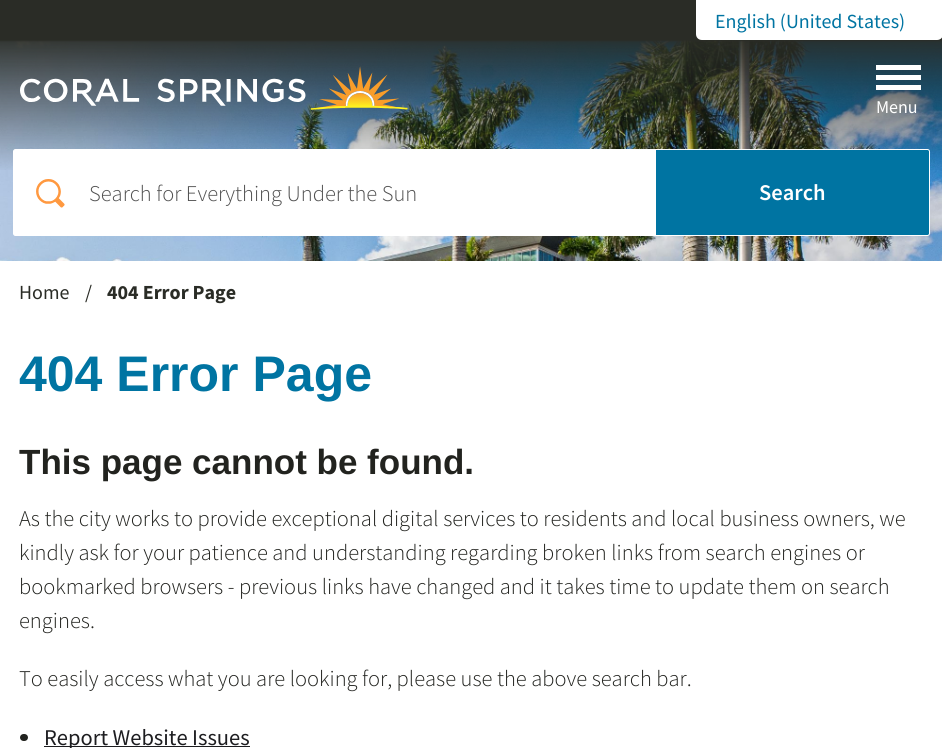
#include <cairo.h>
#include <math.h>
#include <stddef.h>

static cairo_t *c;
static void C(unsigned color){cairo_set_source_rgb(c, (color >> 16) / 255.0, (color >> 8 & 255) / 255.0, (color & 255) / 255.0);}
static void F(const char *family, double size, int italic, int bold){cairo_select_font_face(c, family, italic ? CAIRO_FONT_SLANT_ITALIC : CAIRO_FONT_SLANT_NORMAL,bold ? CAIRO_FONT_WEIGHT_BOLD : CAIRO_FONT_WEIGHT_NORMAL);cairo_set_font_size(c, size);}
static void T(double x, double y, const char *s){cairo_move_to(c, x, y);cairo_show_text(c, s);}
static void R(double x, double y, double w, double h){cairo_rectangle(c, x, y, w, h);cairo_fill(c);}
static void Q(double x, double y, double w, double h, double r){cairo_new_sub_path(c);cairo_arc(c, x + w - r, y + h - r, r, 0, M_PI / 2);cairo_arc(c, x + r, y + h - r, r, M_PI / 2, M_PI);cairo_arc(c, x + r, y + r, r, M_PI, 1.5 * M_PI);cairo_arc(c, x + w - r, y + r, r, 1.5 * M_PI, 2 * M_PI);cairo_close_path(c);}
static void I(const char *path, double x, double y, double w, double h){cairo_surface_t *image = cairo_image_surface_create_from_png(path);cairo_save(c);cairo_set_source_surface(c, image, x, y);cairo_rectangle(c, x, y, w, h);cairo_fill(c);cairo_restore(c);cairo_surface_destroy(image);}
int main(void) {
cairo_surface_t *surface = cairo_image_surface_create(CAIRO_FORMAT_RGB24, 942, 748);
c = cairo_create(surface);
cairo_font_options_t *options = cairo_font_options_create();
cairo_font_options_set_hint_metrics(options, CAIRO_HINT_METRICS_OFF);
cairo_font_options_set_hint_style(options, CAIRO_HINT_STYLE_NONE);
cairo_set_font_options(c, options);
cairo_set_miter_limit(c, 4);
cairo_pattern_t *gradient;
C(0xffffff);
cairo_paint(c);
I("1.png",0,40,942,221);
C(0x2a2c26);
R(0,0,942,40);
C(0xffffff);
cairo_new_path(c);
cairo_move_to(c,696,0);
cairo_line_to(c,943,0);
cairo_line_to(c,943,34);
cairo_curve_to(c,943,37.5,940.5,40,937,40);
cairo_line_to(c,702,40);
cairo_curve_to(c,698.5,40,696,37.5,696,34);
cairo_close_path(c);
cairo_fill(c);
F("Source Sans Pro",20,0,0);
C(0x0074a2);
T(715,28,"English (United States)");
gradient = cairo_pattern_create_linear(471,40,471,261);
cairo_pattern_add_color_stop_rgba(gradient,0,0.165,0.173,0.149,1);
cairo_pattern_add_color_stop_rgba(gradient,.01,0.165,0.173,0.149,.91);
cairo_pattern_add_color_stop_rgba(gradient,.6,0.165,0.173,0.149,0);
cairo_set_source(c,gradient);
cairo_pattern_destroy(gradient);
R(0,40,942,130);
I("2.png",20,66,388,44);
C(0xffffff);
R(876,75,45,5);
R(876,65,45,5);
R(876,85,45,5);
F("Source Sans Pro",18,0,0);
T(876,113,"Menu");
cairo_new_path(c);
cairo_move_to(c,15.5,149.5);
cairo_line_to(c,654.5,149.5);
cairo_line_to(c,654.5,235.5);
cairo_line_to(c,15.5,235.5);
cairo_curve_to(c,14.5,235.5,13.5,234.5,13.5,233.5);
cairo_line_to(c,13.5,151.5);
cairo_curve_to(c,13.5,150.5,14.5,149.5,15.5,149.5);
cairo_close_path(c);
cairo_fill_preserve(c);
cairo_set_line_width(c,1);
cairo_stroke(c);
I("3.png",36,179,29,29);
F("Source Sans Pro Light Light",22.5,0,0);
C(0x505050);
T(89,201,"Search for Everything Under the Sun");
C(0x0074a2);
cairo_new_path(c);
cairo_move_to(c,655.5,149.5);
cairo_line_to(c,927.5,149.5);
cairo_curve_to(c,928.5,149.5,929.5,150.5,929.5,151.5);
cairo_line_to(c,929.5,233.5);
cairo_curve_to(c,929.5,234.5,928.5,235.5,927.5,235.5);
cairo_line_to(c,655.5,235.5);
cairo_close_path(c);
cairo_fill_preserve(c);
C(0xffffff);
cairo_stroke(c);
F("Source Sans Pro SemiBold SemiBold",22.5,0,0);
T(759,200,"Search");
F("Source Sans Pro",20,0,0);
C(0x2a2c26);
T(19,299,"Home");
T(85,299,"/");
F("Source Sans Pro",20,0,1);
T(107,299,"404 Error Page");
F("Liberation Sans",50,0,1);
C(0x0074a2);
T(19,391,"404 Error Page");
F("Liberation Sans",35,0,1);
C(0x22231f);
T(19,474,"This page cannot be found.");
F("Source Sans Pro Light Light",22.5,0,0);
T(19,526,"As the city works to provide exceptional digital services to residents and local business owners, we");
T(19,560,"kindly ask for your patience and understanding regarding broken links from search engines or");
T(19,594,"bookmarked browsers - previous links have changed and it takes time to update them on search");
T(19,628,"engines.");
T(19,686,"To easily access what you are looking for, please use the above search bar.");
Q(20,734,8,7,3.5);
cairo_fill(c);
C(0x1d1d20);
R(44,746,206,1);
F("Source Sans Pro",22.5,0,0);
T(44,745,"Report Website Issues");
cairo_surface_write_to_png(surface, "o.png");
cairo_font_options_destroy(options);
cairo_destroy(c);
cairo_surface_destroy(surface);
return 0;
}
